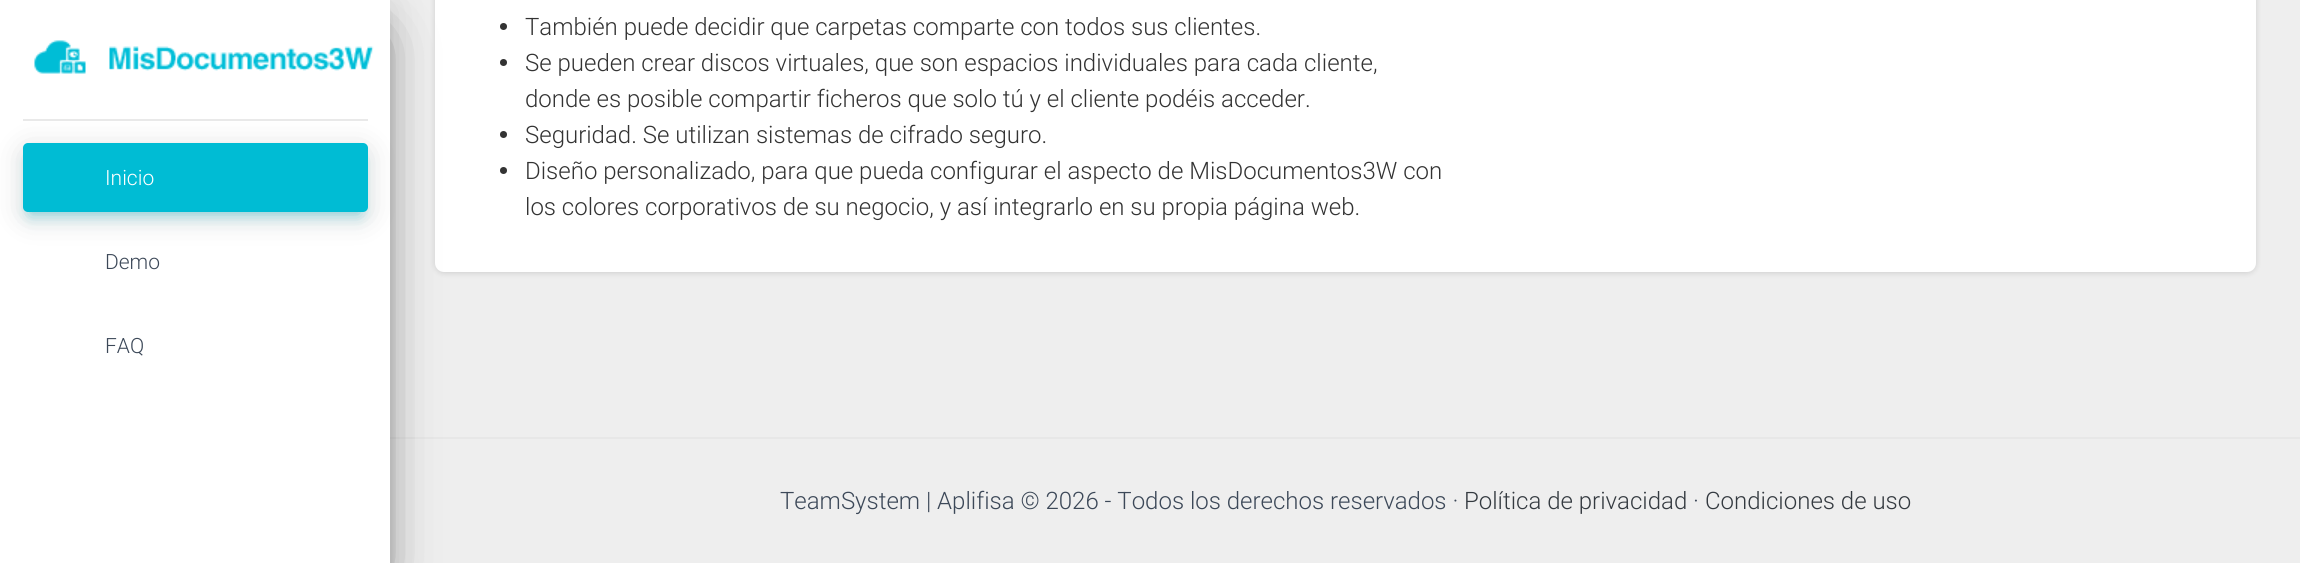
#include <cairo.h>
#include <math.h>
#include <stddef.h>

static cairo_t *c;
static void C(unsigned color){cairo_set_source_rgb(c, (color >> 16) / 255.0, (color >> 8 & 255) / 255.0, (color & 255) / 255.0);}
static void F(const char *family, double size, int italic, int bold){cairo_select_font_face(c, family, italic ? CAIRO_FONT_SLANT_ITALIC : CAIRO_FONT_SLANT_NORMAL,bold ? CAIRO_FONT_WEIGHT_BOLD : CAIRO_FONT_WEIGHT_NORMAL);cairo_set_font_size(c, size);}
static void T(double x, double y, const char *s){cairo_move_to(c, x, y);cairo_show_text(c, s);}
static void R(double x, double y, double w, double h){cairo_rectangle(c, x, y, w, h);cairo_fill(c);}
static void Q(double x, double y, double w, double h, double r){cairo_new_sub_path(c);cairo_arc(c, x + w - r, y + h - r, r, 0, M_PI / 2);cairo_arc(c, x + r, y + h - r, r, M_PI / 2, M_PI);cairo_arc(c, x + r, y + r, r, M_PI, 1.5 * M_PI);cairo_arc(c, x + w - r, y + r, r, 1.5 * M_PI, 2 * M_PI);cairo_close_path(c);}
static void S(double x, double y, double w, double h, double r, double blur, double alpha){cairo_push_group_with_content(c, CAIRO_CONTENT_ALPHA);cairo_set_operator(c, CAIRO_OPERATOR_SOURCE);for (int i = 15; i >= -15 && fmin(w, h) + blur * i / 3 > 0; i -= 2) {double e = blur * i / 6;cairo_set_source_rgba(c, 0, 0, 0, alpha * erfc((i - 1) / 8.5) / 2);Q(x - e, y - e, w + 2 * e, h + 2 * e, fmax(0, fmin(r + e + blur * .6, fmin(w, h) / 2 + e)));cairo_fill(c);}cairo_pattern_t *soft = cairo_pop_group(c);cairo_mask(c, soft);cairo_pattern_destroy(soft);}
static void I(const char *path, double x, double y, double w, double h){cairo_surface_t *image = cairo_image_surface_create_from_png(path);cairo_save(c);cairo_set_source_surface(c, image, x, y);cairo_rectangle(c, x, y, w, h);cairo_fill(c);cairo_restore(c);cairo_surface_destroy(image);}
int main(void) {
cairo_surface_t *surface = cairo_image_surface_create(CAIRO_FORMAT_RGB24, 2300, 563);
c = cairo_create(surface);
cairo_font_options_t *options = cairo_font_options_create();
cairo_font_options_set_hint_metrics(options, CAIRO_HINT_METRICS_OFF);
cairo_font_options_set_hint_style(options, CAIRO_HINT_STYLE_NONE);
cairo_set_font_options(c, options);
cairo_set_miter_limit(c, 4);
C(0xeeeeee);
cairo_paint(c);
C(0xe7e7e7);
R(390,437,1910,2);
C(0x000000);
S(8,20,375,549,0,7.5,.2);
S(435,-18,1821,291,9,3,.14);
C(0xffffff);
Q(435,-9,1821,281,9);
cairo_fill(c);
C(0x000000);
S(0,6,390,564,0,19,.12);
S(18,42,354,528,0,28.5,.56);
C(0xffffff);
R(0,0,390,563);
I("1.png",34,40,52,34);
I("2.png",109,46,265,25);
C(0xe9e9e9);
R(23,119,345,2);
C(0x00bcd4);
S(30,161,330,54,0,7.5,.4);
C(0x000000);
S(23,149,345,69,5,15,.14);
C(0x00bcd4);
Q(23,143,345,69,5);
cairo_fill(c);
F("Roboto Light",21,0,0);
C(0xffffff);
T(105,185,"Inicio");
C(0x3c4858);
T(105,269,"Demo");
T(105,353,"FAQ");
C(0x333333);
cairo_new_path(c);
cairo_arc(c,503.5,26.5,3.5,0,2 * M_PI);
cairo_fill(c);
F("Roboto Light",24,0,0);
T(525,35,"También puede decidir que carpetas comparte con todos sus clientes.");
cairo_new_path(c);
cairo_arc(c,503.5,62.5,3.5,0,2 * M_PI);
cairo_fill(c);
T(525,71,"Se pueden crear discos virtuales, que son espacios individuales para cada cliente,");
T(525,107,"donde es posible compartir ficheros que solo tú y el cliente podéis acceder.");
cairo_new_path(c);
cairo_arc(c,503.5,134.5,3.5,0,2 * M_PI);
cairo_fill(c);
T(525,143,"Seguridad. Se utilizan sistemas de cifrado seguro.");
cairo_new_path(c);
cairo_arc(c,503.5,170.5,3.5,0,2 * M_PI);
cairo_fill(c);
T(525,179,"Diseño personalizado, para que pueda configurar el aspecto de MisDocumentos3W con");
T(525,215,"los colores corporativos de su negocio, y así integrarlo en su propia página web.");
C(0x3c4858);
T(780,509,"TeamSystem | Aplifisa © 2026 - Todos los derechos reservados ·");
C(0x343a40);
T(1464,509,"Política de privacidad");
C(0x3c4858);
T(1693,509,"·");
C(0x343a40);
T(1705,509,"Condiciones de uso");
cairo_surface_write_to_png(surface, "o.png");
cairo_font_options_destroy(options);
cairo_destroy(c);
cairo_surface_destroy(surface);
return 0;
}
